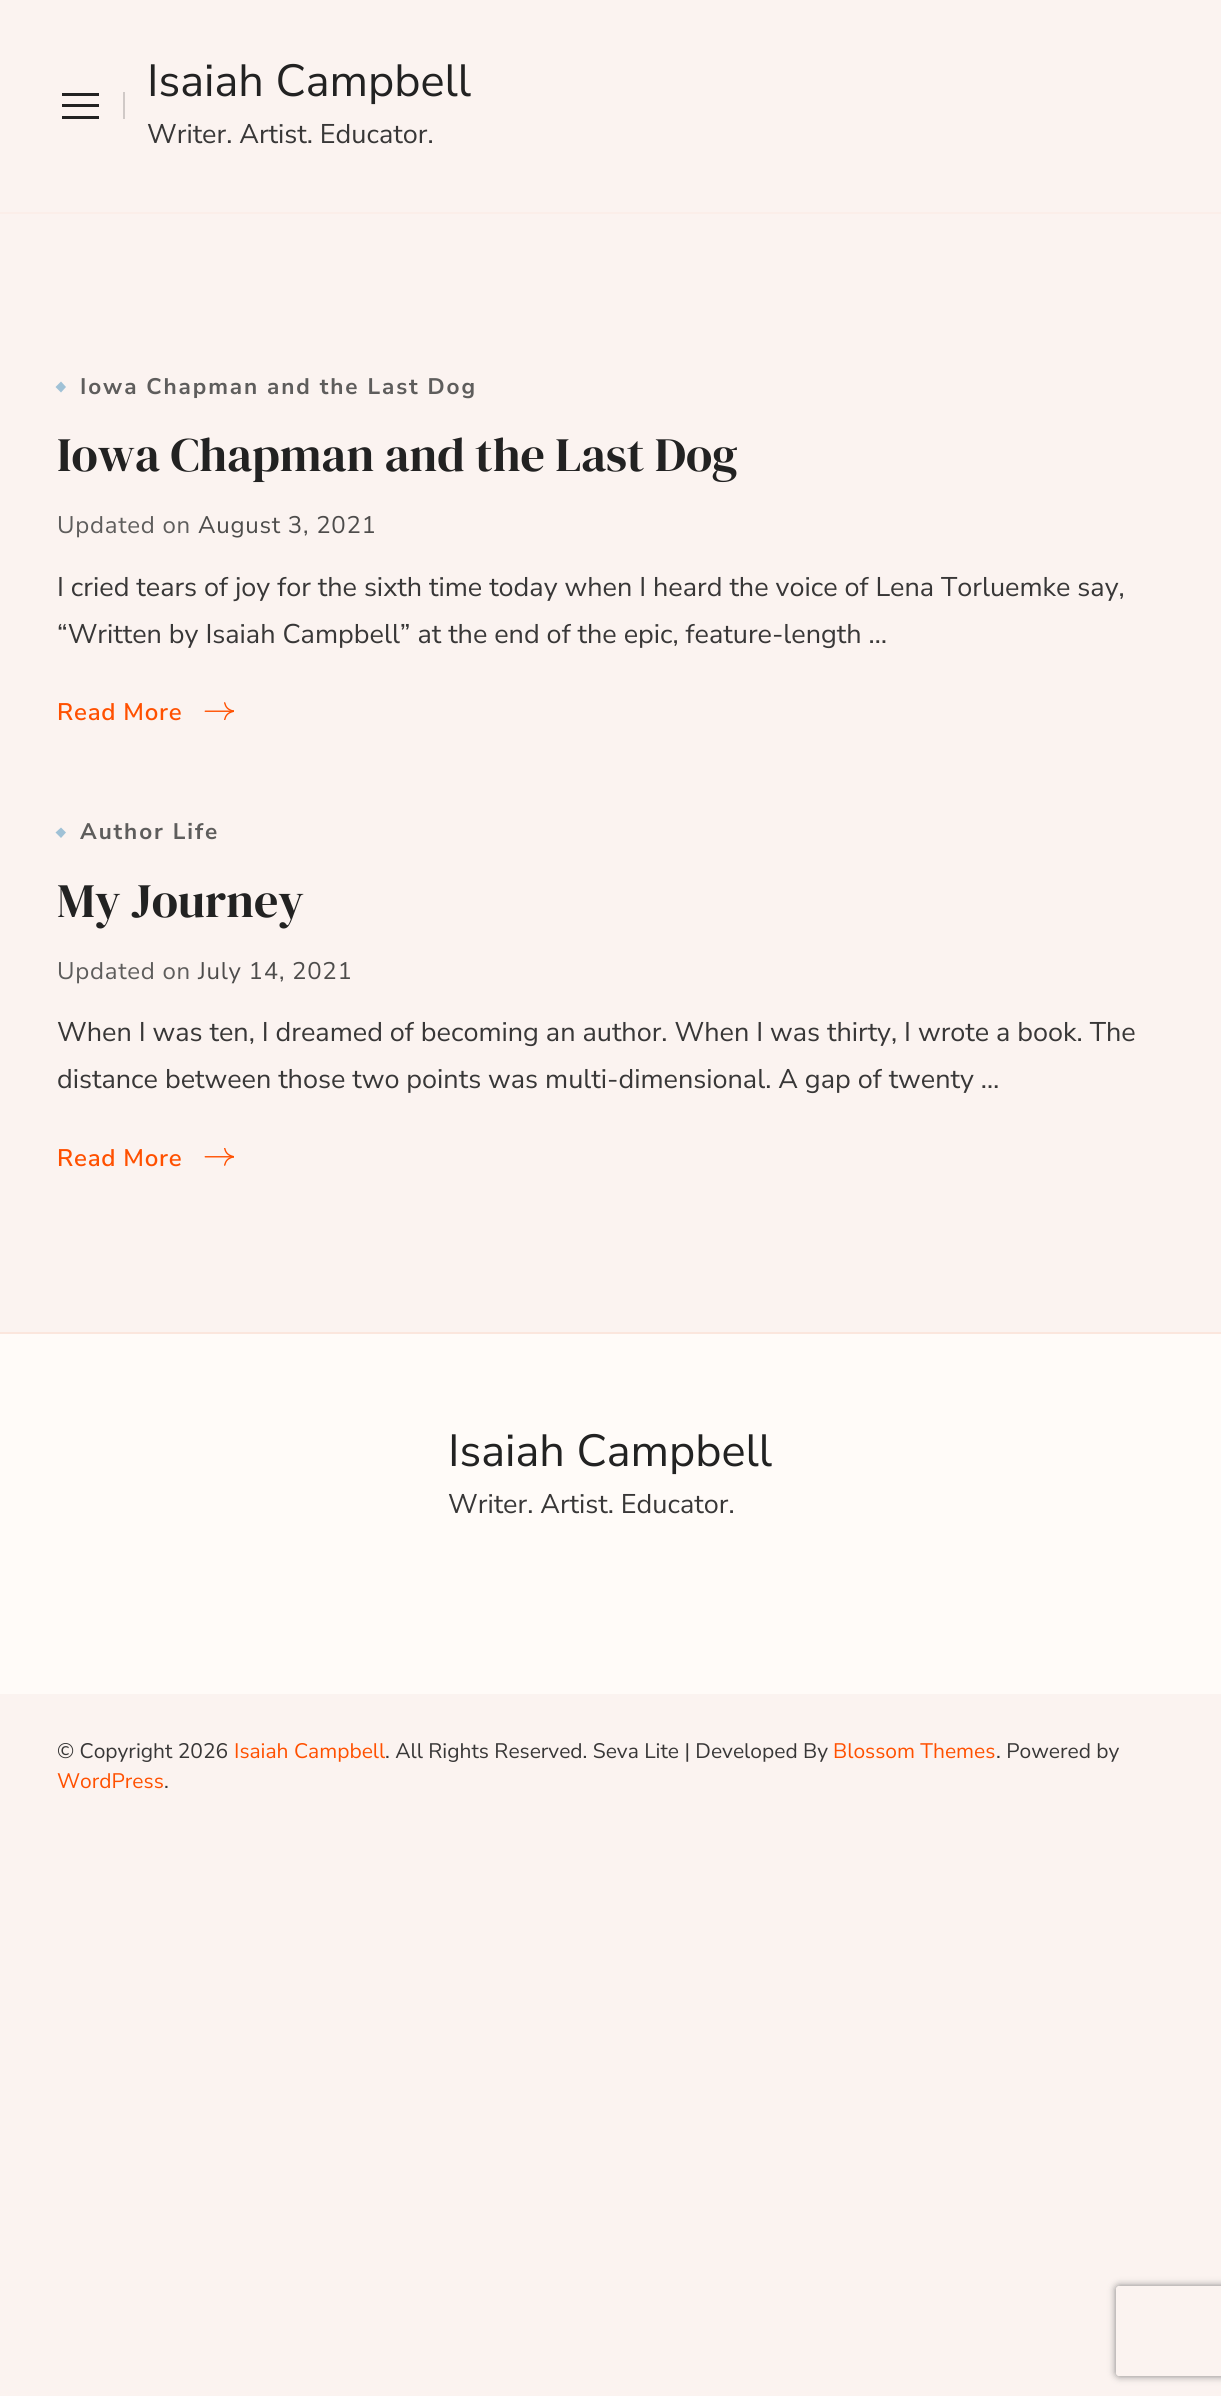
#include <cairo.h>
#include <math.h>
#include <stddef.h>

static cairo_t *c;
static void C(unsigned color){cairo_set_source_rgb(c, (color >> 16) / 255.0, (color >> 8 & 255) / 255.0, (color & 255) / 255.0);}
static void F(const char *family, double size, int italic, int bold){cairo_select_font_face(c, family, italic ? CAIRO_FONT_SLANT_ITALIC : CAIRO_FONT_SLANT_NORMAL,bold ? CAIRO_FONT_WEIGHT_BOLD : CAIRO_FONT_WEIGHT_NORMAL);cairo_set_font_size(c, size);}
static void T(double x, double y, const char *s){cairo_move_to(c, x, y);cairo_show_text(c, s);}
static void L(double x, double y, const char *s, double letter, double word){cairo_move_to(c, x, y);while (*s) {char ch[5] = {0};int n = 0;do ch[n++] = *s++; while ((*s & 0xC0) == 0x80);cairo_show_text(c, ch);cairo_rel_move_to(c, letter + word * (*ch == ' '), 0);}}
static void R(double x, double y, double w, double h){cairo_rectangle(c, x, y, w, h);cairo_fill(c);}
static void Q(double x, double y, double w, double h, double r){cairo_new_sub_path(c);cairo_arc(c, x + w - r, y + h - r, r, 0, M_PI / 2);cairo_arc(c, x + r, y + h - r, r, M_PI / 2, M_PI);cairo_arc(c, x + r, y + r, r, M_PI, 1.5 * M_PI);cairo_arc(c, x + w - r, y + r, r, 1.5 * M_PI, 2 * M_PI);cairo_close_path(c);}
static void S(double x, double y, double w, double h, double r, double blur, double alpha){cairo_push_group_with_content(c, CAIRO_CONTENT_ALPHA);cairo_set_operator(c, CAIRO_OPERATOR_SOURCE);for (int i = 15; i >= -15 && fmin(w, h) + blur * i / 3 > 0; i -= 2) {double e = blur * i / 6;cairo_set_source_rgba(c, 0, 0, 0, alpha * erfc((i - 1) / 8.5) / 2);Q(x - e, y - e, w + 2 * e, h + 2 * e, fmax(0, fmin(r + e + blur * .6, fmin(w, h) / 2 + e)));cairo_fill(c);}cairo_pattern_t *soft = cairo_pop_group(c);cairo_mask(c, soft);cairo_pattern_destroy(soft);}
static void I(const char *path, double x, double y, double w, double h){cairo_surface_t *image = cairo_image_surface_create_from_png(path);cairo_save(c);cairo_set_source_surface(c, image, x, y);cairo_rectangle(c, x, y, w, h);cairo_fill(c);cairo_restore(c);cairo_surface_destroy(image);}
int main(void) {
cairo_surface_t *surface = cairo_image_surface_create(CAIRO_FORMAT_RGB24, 1221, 2396);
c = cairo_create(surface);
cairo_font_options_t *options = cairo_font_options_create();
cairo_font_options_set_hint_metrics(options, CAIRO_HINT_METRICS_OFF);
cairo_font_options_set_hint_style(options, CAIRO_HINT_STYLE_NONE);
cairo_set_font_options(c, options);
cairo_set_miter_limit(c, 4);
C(0xfbf3f0);
cairo_paint(c);
C(0xfbeee9);
R(0,212,1221,2);
C(0x222222);
R(62,93,37,3);
R(62,104,37,3);
R(62,116,37,3);
C(0xd0c9c7);
R(123,92,2,27);
F("Nunito Sans",45,0,0);
C(0x222222);
T(147,96,"Isaiah Campbell");
F("Nunito Sans",27,0,0);
C(0x383737);
T(147,143,"Writer. Artist. Educator.");
C(0x9fc1d6);
cairo_new_path(c);
cairo_move_to(c,61,381.5);
cairo_line_to(c,66,387);
cairo_line_to(c,61,392.5);
cairo_line_to(c,55.5,387);
cairo_close_path(c);
cairo_fill(c);
F("Nunito Sans",22.5,0,1);
C(0x5e5d5c);
L(80,394,"Iowa Chapman and the Last Dog",1.9,0);
F("DM Serif Display",48,0,0);
C(0x222222);
T(57,471,"Iowa Chapman and the Last Dog");
F("Nunito Sans",24,0,0);
C(0x5e5d5c);
L(57,533,"Updated on",.75,0);
C(0x4d4c4b);
L(198,533,"August 3, 2021",.75,0);
F("Nunito Sans",27,0,0);
C(0x383737);
T(57,596,"I cried tears of joy for the sixth time today when I heard the voice of Lena Torluemke say,");
T(57,643,"“Written by Isaiah Campbell” at the end of the epic, feature-length …");
F("Nunito Sans SemiBold",24,0,0);
C(0xff5000);
L(57,720,"Read More",.75,0);
I("1.png",204,702,30,18);
C(0x9fc1d6);
cairo_new_path(c);
cairo_move_to(c,61,827.5);
cairo_line_to(c,66,832.5);
cairo_line_to(c,61,838);
cairo_line_to(c,55.5,832.5);
cairo_close_path(c);
cairo_fill(c);
F("Nunito Sans",22.5,0,1);
C(0x5e5d5c);
L(80,839,"Author Life",1.9,0);
F("DM Serif Display",48,0,0);
C(0x222222);
T(57,917,"My Journey");
F("Nunito Sans",24,0,0);
C(0x5e5d5c);
L(57,979,"Updated on",.75,0);
C(0x4d4c4b);
L(198,979,"July 14, 2021",.75,0);
F("Nunito Sans",27,0,0);
C(0x383737);
T(57,1041,"When I was ten, I dreamed of becoming an author. When I was thirty, I wrote a book. The");
T(57,1088,"distance between those two points was multi-dimensional. A gap of twenty …");
F("Nunito Sans SemiBold",24,0,0);
C(0xff5000);
L(57,1166,"Read More",.75,0);
I("2.png",204,1148,30,18);
C(0xfbe6dd);
R(0,1332,1221,2);
C(0xfffbf8);
R(0,1334,1221,360);
F("Nunito Sans",45,0,0);
C(0x222222);
T(448,1466,"Isaiah Campbell");
F("Nunito Sans",27,0,0);
C(0x383737);
T(448,1513,"Writer. Artist. Educator.");
F("Nunito Sans",21,0,0);
T(57,1758,"© Copyright 2026");
C(0xff5000);
T(234,1758,"Isaiah Campbell");
C(0x383737);
T(385,1758,". All Rights Reserved. Seva Lite | Developed By");
C(0xff5000);
T(833,1758,"Blossom Themes");
C(0x383737);
T(996,1758,". Powered by");
C(0xff5000);
T(57,1788,"WordPress");
C(0x383737);
T(164,1788,".");
cairo_save(c);
cairo_set_fill_rule(c,CAIRO_FILL_RULE_EVEN_ODD);
cairo_new_path(c);
cairo_move_to(c,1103,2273);
cairo_line_to(c,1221,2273);
cairo_line_to(c,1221,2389);
cairo_line_to(c,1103,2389);
cairo_close_path(c);
cairo_move_to(c,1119,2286);
cairo_line_to(c,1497,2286);
cairo_curve_to(c,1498.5,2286,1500,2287.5,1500,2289);
cairo_line_to(c,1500,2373);
cairo_curve_to(c,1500,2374.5,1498.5,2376,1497,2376);
cairo_line_to(c,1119,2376);
cairo_curve_to(c,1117.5,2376,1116,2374.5,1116,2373);
cairo_line_to(c,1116,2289);
cairo_curve_to(c,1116,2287.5,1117.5,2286,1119,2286);
cairo_close_path(c);
cairo_clip(c);
C(0x808080);
S(1116,2286,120,90,3,4,1);
cairo_restore(c);
cairo_surface_write_to_png(surface, "o.png");
cairo_font_options_destroy(options);
cairo_destroy(c);
cairo_surface_destroy(surface);
return 0;
}
